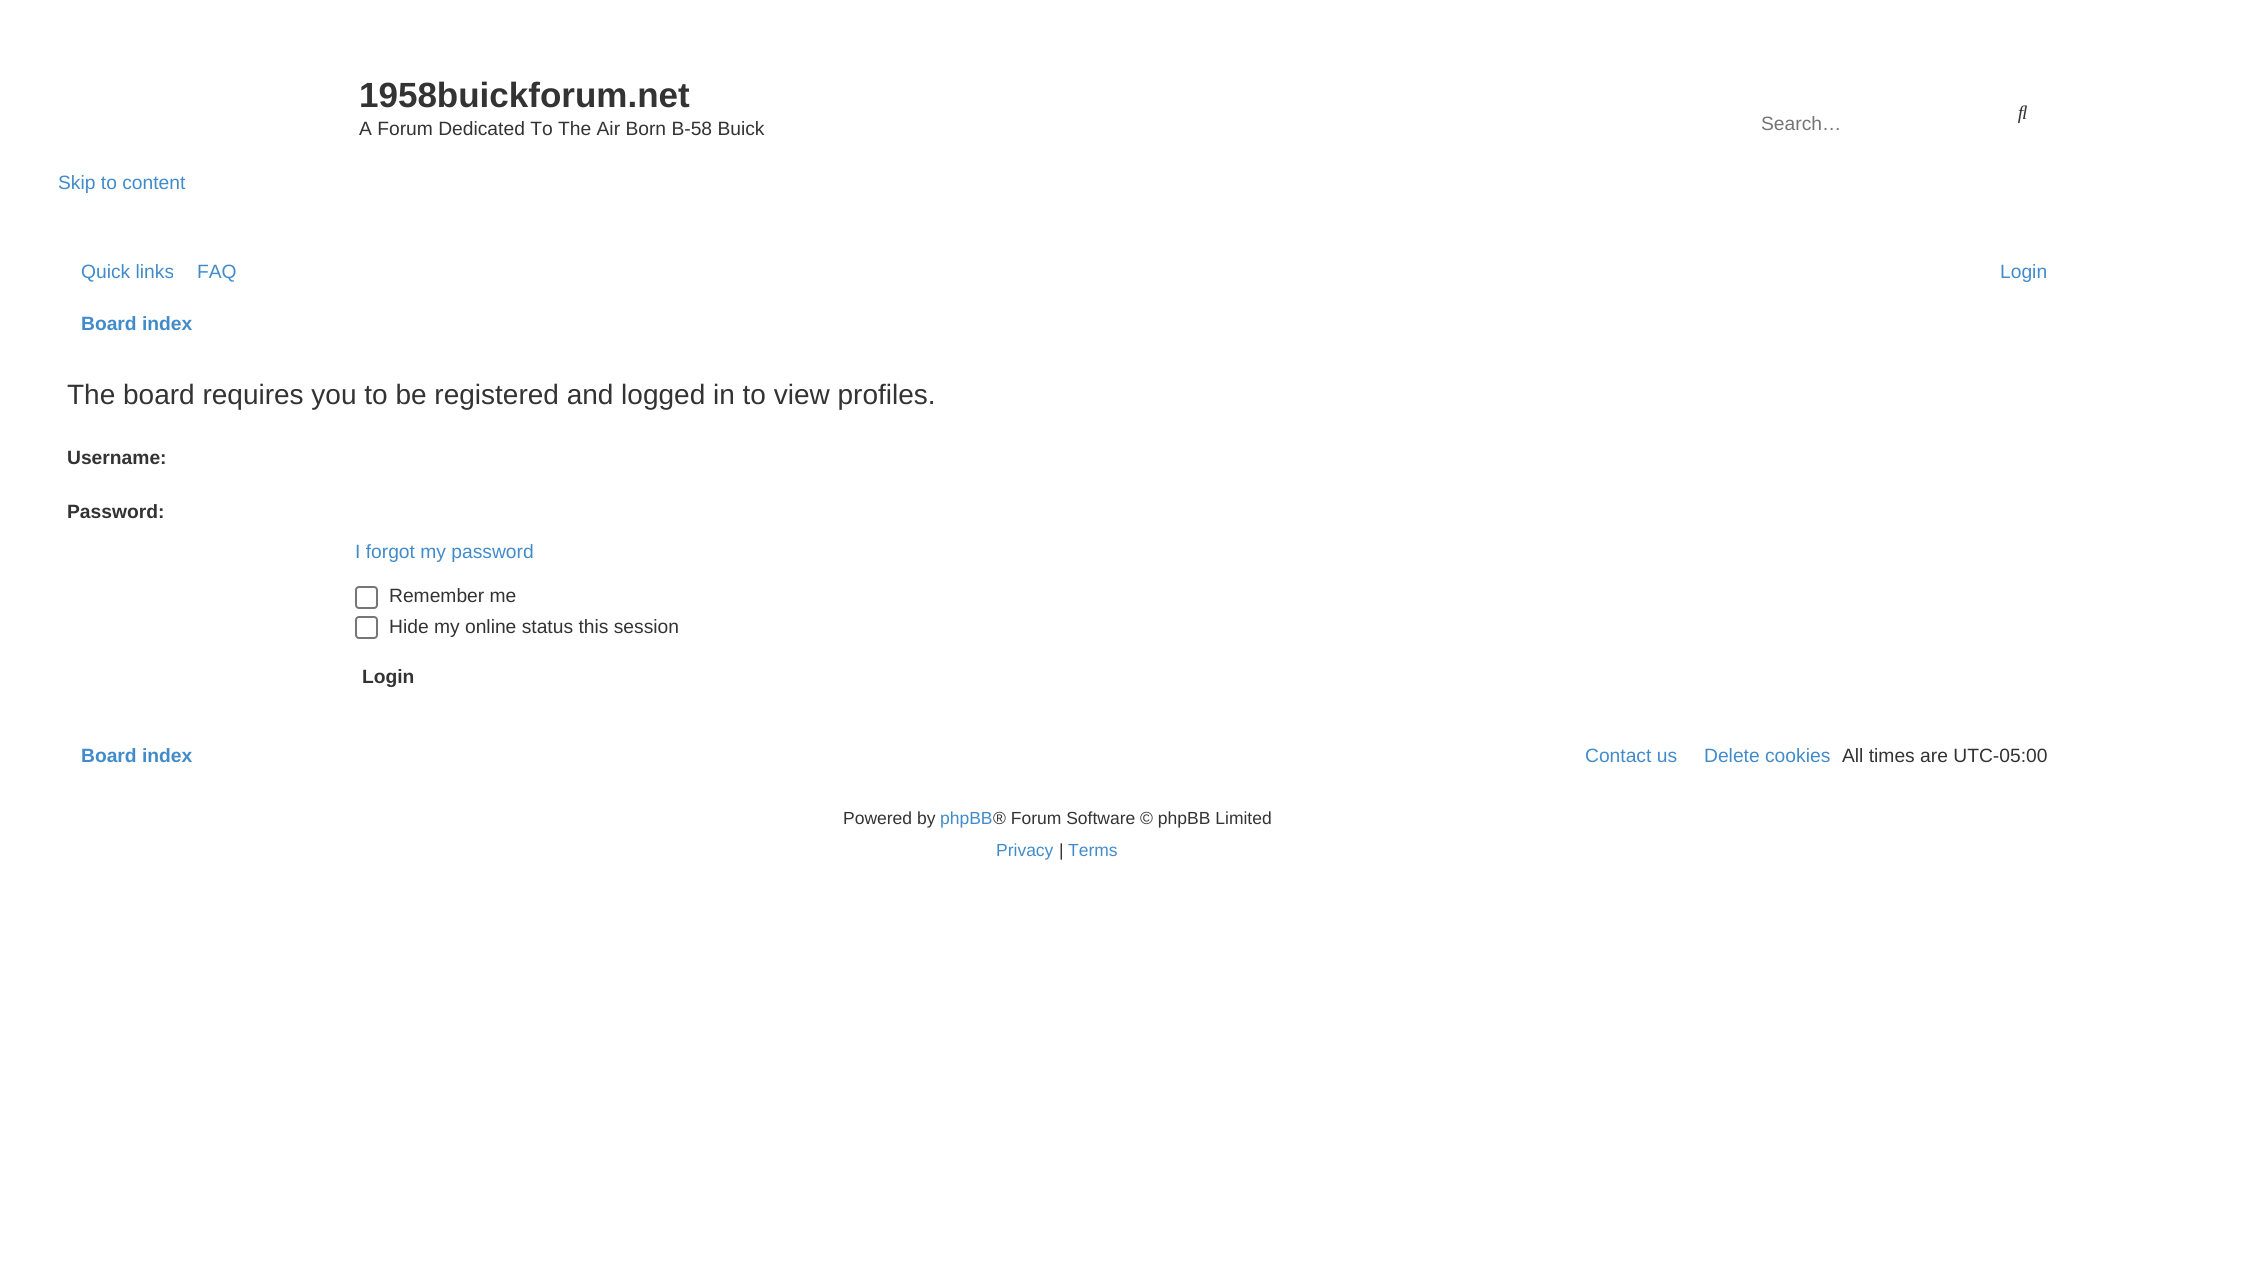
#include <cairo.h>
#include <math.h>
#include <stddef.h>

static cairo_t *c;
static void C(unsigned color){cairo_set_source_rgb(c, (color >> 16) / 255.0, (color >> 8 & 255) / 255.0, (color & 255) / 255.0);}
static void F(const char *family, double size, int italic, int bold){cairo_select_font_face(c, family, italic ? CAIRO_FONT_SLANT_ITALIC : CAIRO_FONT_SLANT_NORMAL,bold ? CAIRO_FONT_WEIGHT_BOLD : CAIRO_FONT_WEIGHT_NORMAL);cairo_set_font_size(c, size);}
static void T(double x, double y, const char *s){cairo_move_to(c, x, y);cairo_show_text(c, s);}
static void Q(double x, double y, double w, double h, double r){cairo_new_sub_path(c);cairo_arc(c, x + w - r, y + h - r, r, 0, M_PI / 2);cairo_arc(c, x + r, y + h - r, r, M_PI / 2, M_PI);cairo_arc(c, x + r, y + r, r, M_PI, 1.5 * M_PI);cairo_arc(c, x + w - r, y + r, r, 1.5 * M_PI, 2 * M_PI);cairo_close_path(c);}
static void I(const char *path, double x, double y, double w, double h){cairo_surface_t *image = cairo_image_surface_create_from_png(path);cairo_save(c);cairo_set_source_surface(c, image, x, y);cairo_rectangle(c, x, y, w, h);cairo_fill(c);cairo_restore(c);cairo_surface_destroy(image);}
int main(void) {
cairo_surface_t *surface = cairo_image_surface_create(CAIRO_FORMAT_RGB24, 2266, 1287);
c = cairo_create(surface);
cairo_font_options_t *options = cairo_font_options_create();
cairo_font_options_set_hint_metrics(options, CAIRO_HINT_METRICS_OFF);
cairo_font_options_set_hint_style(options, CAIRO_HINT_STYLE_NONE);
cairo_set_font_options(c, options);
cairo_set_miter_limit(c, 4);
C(0xffffff);
cairo_paint(c);
F("Liberation Sans",35,0,1);
C(0x333333);
T(359,107,"1958buickforum.net");
F("Liberation Sans",19.25,0,0);
T(359,135,"A Forum Dedicated To The Air Born B-58 Buick");
C(0x428bca);
T(58,189,"Skip to content");
C(0x757575);
T(1761,130,"Search…");
I("1.png",2018,105,9,19);
C(0x428bca);
T(81,278,"Quick links");
T(197,278,"FAQ");
T(2000,278,"Login");
F("Liberation Sans",19.25,0,1);
T(81,330,"Board index");
F("Liberation Sans",28,0,0);
C(0x333333);
T(67,404,"The board requires you to be registered and logged in to view profiles.");
F("Liberation Sans",19.25,0,1);
T(67,464,"Username:");
T(67,518,"Password:");
F("Liberation Sans",19.25,0,0);
C(0x428bca);
T(355,558,"I forgot my password");
Q(356,587,21,21,3);
C(0x767676);
cairo_stroke(c);
C(0x333333);
T(389,602,"Remember me");
Q(356,617,21,21,3);
C(0x767676);
cairo_stroke(c);
C(0x333333);
T(389,633,"Hide my online status this session");
F("Liberation Sans",19.25,0,1);
T(362,683,"Login");
C(0x428bca);
T(81,762,"Board index");
F("Liberation Sans",19.25,0,0);
T(1585,762,"Contact us");
T(1704,762,"Delete cookies");
C(0x333333);
T(1842,762,"All times are UTC-05:00");
F("Liberation Sans",17.5,0,0);
T(843,824,"Powered by");
C(0x428bca);
T(940,824,"phpBB");
C(0x333333);
T(993,824,"® Forum Software © phpBB Limited");
C(0x428bca);
T(996,856,"Privacy");
C(0x333333);
T(1059,856,"|");
C(0x428bca);
T(1068,856,"Terms");
cairo_surface_write_to_png(surface, "o.png");
cairo_font_options_destroy(options);
cairo_destroy(c);
cairo_surface_destroy(surface);
return 0;
}
